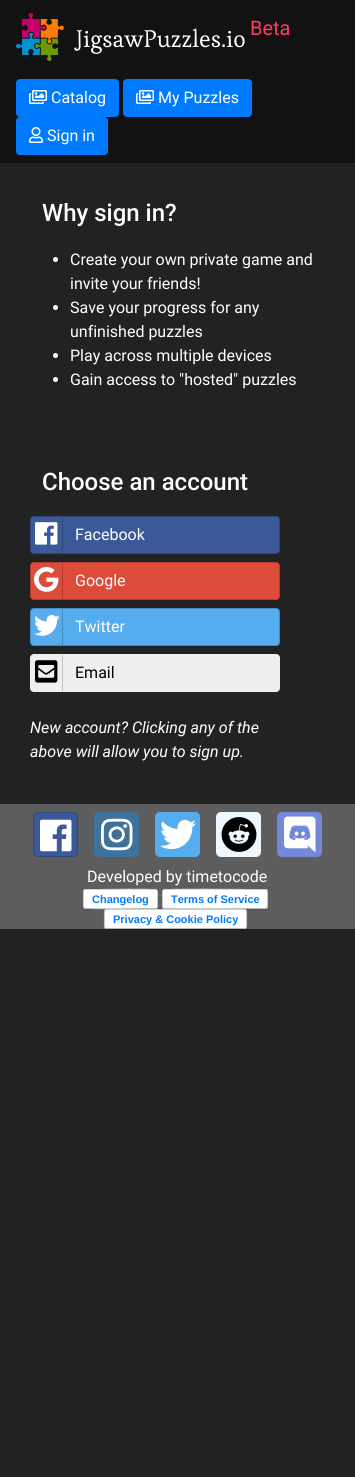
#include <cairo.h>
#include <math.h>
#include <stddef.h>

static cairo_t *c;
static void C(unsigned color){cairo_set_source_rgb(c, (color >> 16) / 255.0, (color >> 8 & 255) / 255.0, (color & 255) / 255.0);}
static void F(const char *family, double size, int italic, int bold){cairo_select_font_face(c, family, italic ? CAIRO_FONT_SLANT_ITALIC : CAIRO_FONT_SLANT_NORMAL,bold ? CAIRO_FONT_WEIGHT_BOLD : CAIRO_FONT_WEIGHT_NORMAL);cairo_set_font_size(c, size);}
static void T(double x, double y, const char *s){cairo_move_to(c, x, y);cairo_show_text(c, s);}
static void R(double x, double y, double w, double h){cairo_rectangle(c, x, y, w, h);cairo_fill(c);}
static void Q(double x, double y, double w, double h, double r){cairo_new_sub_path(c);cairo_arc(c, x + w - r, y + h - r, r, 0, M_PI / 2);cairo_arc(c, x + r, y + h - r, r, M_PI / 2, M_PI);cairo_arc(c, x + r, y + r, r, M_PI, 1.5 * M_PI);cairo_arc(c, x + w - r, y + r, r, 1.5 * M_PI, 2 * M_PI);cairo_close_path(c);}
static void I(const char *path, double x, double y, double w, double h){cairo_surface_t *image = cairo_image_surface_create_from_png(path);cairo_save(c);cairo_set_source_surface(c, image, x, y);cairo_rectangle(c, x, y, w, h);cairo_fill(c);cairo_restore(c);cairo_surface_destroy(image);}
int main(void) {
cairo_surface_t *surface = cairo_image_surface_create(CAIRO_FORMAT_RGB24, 355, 1477);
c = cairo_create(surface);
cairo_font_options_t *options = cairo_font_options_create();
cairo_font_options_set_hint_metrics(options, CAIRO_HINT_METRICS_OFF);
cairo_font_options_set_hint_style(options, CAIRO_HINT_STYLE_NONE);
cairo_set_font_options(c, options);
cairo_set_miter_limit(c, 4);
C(0x222222);
cairo_paint(c);
C(0x121212);
R(0,0,355,163);
I("1.png",16,13,48,48);
F("Esteban",24,0,0);
C(0xffffff);
T(76,47,"JigsawPuzzles.io");
F("Roboto",20,0,0);
C(0xff3c66);
T(250,35,"Beta");
C(0x007bff);
Q(16.5,79.5,102,37,3.5);
cairo_fill_preserve(c);
cairo_set_line_width(c,1);
cairo_stroke(c);
I("2.png",29,90,18,14);
F("Roboto",16,0,0);
C(0xffffff);
T(51,103,"Catalog");
C(0x007bff);
Q(123.5,79.5,128,37,3.5);
cairo_fill_preserve(c);
cairo_stroke(c);
I("2.png",136,90,18,14);
C(0xffffff);
T(158,103,"My Puzzles");
C(0x007bff);
Q(16.5,117.5,91,37,3.5);
cairo_fill_preserve(c);
cairo_stroke(c);
I("3.png",29,127,14,16);
C(0xffffff);
T(47,141,"Sign in");
F("Roboto Medium",24,0,0);
T(42,221,"Why sign in?");
cairo_new_path(c);
cairo_arc(c,55.5,259.5,2.5,0,2 * M_PI);
cairo_fill(c);
F("Roboto",16,0,0);
T(70,265,"Create your own private game and");
T(70,289,"invite your friends!");
cairo_new_path(c);
cairo_arc(c,55.5,307.5,2.5,0,2 * M_PI);
cairo_fill(c);
T(70,313,"Save your progress for any");
T(70,337,"unfinished puzzles");
cairo_new_path(c);
cairo_arc(c,55.5,355.5,2.5,0,2 * M_PI);
cairo_fill(c);
T(70,361,"Play across multiple devices");
cairo_new_path(c);
cairo_arc(c,55.5,379.5,2.5,0,2 * M_PI);
cairo_fill(c);
T(70,385,"Gain access to \"hosted\" puzzles");
F("Roboto Medium",24,0,0);
T(42,490,"Choose an account");
C(0x3b5998);
Q(30,516,250,38,4);
cairo_fill(c);
Q(30.5,516.5,249,37,3.5);
cairo_set_source_rgba(c,0,0,0,0.2);
cairo_stroke(c);
C(0x2f477a);
R(62,517,1,36);
I("4.png",35,522,23,23);
F("Roboto",16,0,0);
C(0xffffff);
T(75,540,"Facebook");
C(0xdd4b39);
Q(30,562,250,38,4);
cairo_fill(c);
Q(30.5,562.5,249,37,3.5);
cairo_set_source_rgba(c,0,0,0,0.2);
cairo_stroke(c);
C(0xb13c2e);
R(62,563,1,36);
I("5.png",34,567,25,25);
C(0xffffff);
T(75,586,"Google");
C(0x55acee);
Q(30,608,250,38,4);
cairo_fill(c);
Q(30.5,608.5,249,37,3.5);
cairo_set_source_rgba(c,0,0,0,0.2);
cairo_stroke(c);
C(0x448abe);
R(62,609,1,36);
I("6.png",34,615,26,21);
C(0xffffff);
T(75,632,"Twitter");
C(0xefefef);
Q(30,654,250,38,4);
cairo_fill(c);
C(0xbfbfbf);
R(62,655,1,36);
I("7.png",35,660,23,23);
C(0x000000);
T(75,678,"Email");
F("Roboto",16,1,0);
C(0xffffff);
T(30,733,"New account? Clicking any of the");
T(30,757,"above will allow you to sign up.");
C(0x5d5d5d);
R(0,804,355,125);
C(0x3b5998);
Q(33,812,45,45,5);
cairo_fill(c);
Q(33.5,812.5,44,44,4.5);
cairo_set_source_rgba(c,0,0,0,0.2);
cairo_stroke(c);
I("8.png",40,819,32,33);
C(0x3f729b);
Q(94,812,45,45,5);
cairo_fill(c);
I("9.png",101,818,32,33);
C(0x55acee);
Q(155,812,45,45,5);
cairo_fill(c);
I("10.png",160,819,36,31);
C(0xeff7ff);
Q(216,812,45,45,5);
cairo_fill(c);
I("11.png",221,817,36,35);
C(0x7289da);
Q(277,812,45,45,5);
cairo_fill(c);
I("12.png",284,816,32,37);
F("Roboto",16,0,0);
C(0xffffff);
T(87,882,"Developed by timetocode");
C(0x565656);
cairo_new_path(c);
cairo_move_to(c,83,906);
cairo_curve_to(c,83,913,93,910,98,910);
cairo_line_to(c,144,910);
cairo_curve_to(c,148,910,158,913,158,906);
cairo_curve_to(c,158,908,157,909,155,909);
cairo_line_to(c,86,909);
cairo_curve_to(c,84,909,83,908,83,906);
cairo_close_path(c);
cairo_fill(c);
C(0xffffff);
Q(83,889,75,20,3);
cairo_fill(c);
cairo_new_path(c);
cairo_move_to(c,84,890);
cairo_line_to(c,86,889.5);
cairo_line_to(c,97.5,889.5);
cairo_curve_to(c,104,889.5,154.5,888.5,156.5,890);
cairo_line_to(c,157,890);
C(0xd0d0d0);
cairo_stroke(c);
cairo_new_path(c);
cairo_move_to(c,157,890);
cairo_curve_to(c,158,891.5,157.5,897,157.5,899);
cairo_curve_to(c,157.5,901,158,906.5,157,908);
C(0xc3c3c3);
cairo_stroke(c);
cairo_new_path(c);
cairo_move_to(c,157,908);
cairo_line_to(c,155,908.5);
cairo_line_to(c,143.5,908.5);
cairo_curve_to(c,137,908.5,86.5,909.5,84.5,908);
cairo_line_to(c,84,908);
C(0xb8b9ba);
cairo_stroke(c);
cairo_new_path(c);
cairo_move_to(c,84,908);
cairo_curve_to(c,83,906.5,83.5,901,83.5,899);
cairo_curve_to(c,83.5,897,83,891.5,84,890);
C(0xc3c3c3);
cairo_stroke(c);
F("Liberation Sans",11,0,1);
C(0x007bff);
T(92,903,"Changelog");
C(0x565656);
cairo_new_path(c);
cairo_move_to(c,162,906);
cairo_curve_to(c,162,914,179,910,182,910);
cairo_line_to(c,248,910);
cairo_curve_to(c,251,910,268,914,268,906);
cairo_curve_to(c,268,908,267,909,265,909);
cairo_line_to(c,165,909);
cairo_curve_to(c,163,909,162,908,162,906);
cairo_close_path(c);
cairo_fill(c);
C(0xffffff);
Q(162,889,106,20,3);
cairo_fill(c);
cairo_new_path(c);
cairo_move_to(c,163,890);
cairo_line_to(c,163.5,890);
cairo_curve_to(c,165.5,888.5,239.5,889.5,248.5,889.5);
cairo_line_to(c,265,889.5);
cairo_line_to(c,267,890);
C(0xd0d0d0);
cairo_stroke(c);
cairo_new_path(c);
cairo_move_to(c,267,890);
cairo_curve_to(c,268,891.5,267.5,897,267.5,899);
cairo_curve_to(c,267.5,901,268,906.5,267,908);
C(0xc3c3c3);
cairo_stroke(c);
cairo_new_path(c);
cairo_move_to(c,267,908);
cairo_line_to(c,265,908.5);
cairo_line_to(c,248.5,908.5);
cairo_curve_to(c,239.5,908.5,165.5,909.5,163.5,908);
cairo_line_to(c,163,908);
C(0xb8b9ba);
cairo_stroke(c);
cairo_new_path(c);
cairo_move_to(c,163,908);
cairo_curve_to(c,162,906.5,162.5,901,162.5,899);
cairo_curve_to(c,162.5,897,162,891.5,163,890);
C(0xc3c3c3);
cairo_stroke(c);
C(0x007bff);
T(171,903,"Terms of Service");
cairo_set_source_rgba(c,0,0,0,0.08);
cairo_new_path(c);
cairo_move_to(c,104,926);
cairo_line_to(c,104,927);
cairo_curve_to(c,104,929,105,930,107,930);
cairo_line_to(c,244,930);
cairo_curve_to(c,246,930,247,929,247,927);
cairo_line_to(c,247,926);
cairo_curve_to(c,247,928,246,929,244,929);
cairo_line_to(c,107,929);
cairo_curve_to(c,105,929,104,928,104,926);
cairo_close_path(c);
cairo_fill(c);
C(0xffffff);
Q(104,909,143,20,3);
cairo_fill(c);
cairo_new_path(c);
cairo_move_to(c,105,910);
cairo_line_to(c,107,909.5);
cairo_line_to(c,244,909.5);
cairo_line_to(c,246,910);
C(0xd0d0d0);
cairo_stroke(c);
cairo_new_path(c);
cairo_move_to(c,246,910);
cairo_curve_to(c,247,911.5,246.5,917,246.5,919);
cairo_curve_to(c,246.5,921,247,926.5,246,928);
C(0xc3c3c3);
cairo_stroke(c);
cairo_new_path(c);
cairo_move_to(c,246,928);
cairo_line_to(c,244,928.5);
cairo_line_to(c,107,928.5);
cairo_line_to(c,105,928);
C(0xb8b9ba);
cairo_stroke(c);
cairo_new_path(c);
cairo_move_to(c,105,928);
cairo_curve_to(c,104,926.5,104.5,921,104.5,919);
cairo_curve_to(c,104.5,917,104,911.5,105,910);
C(0xc3c3c3);
cairo_stroke(c);
C(0x007bff);
T(113,923,"Privacy & Cookie Policy");
cairo_surface_write_to_png(surface, "o.png");
cairo_font_options_destroy(options);
cairo_destroy(c);
cairo_surface_destroy(surface);
return 0;
}
